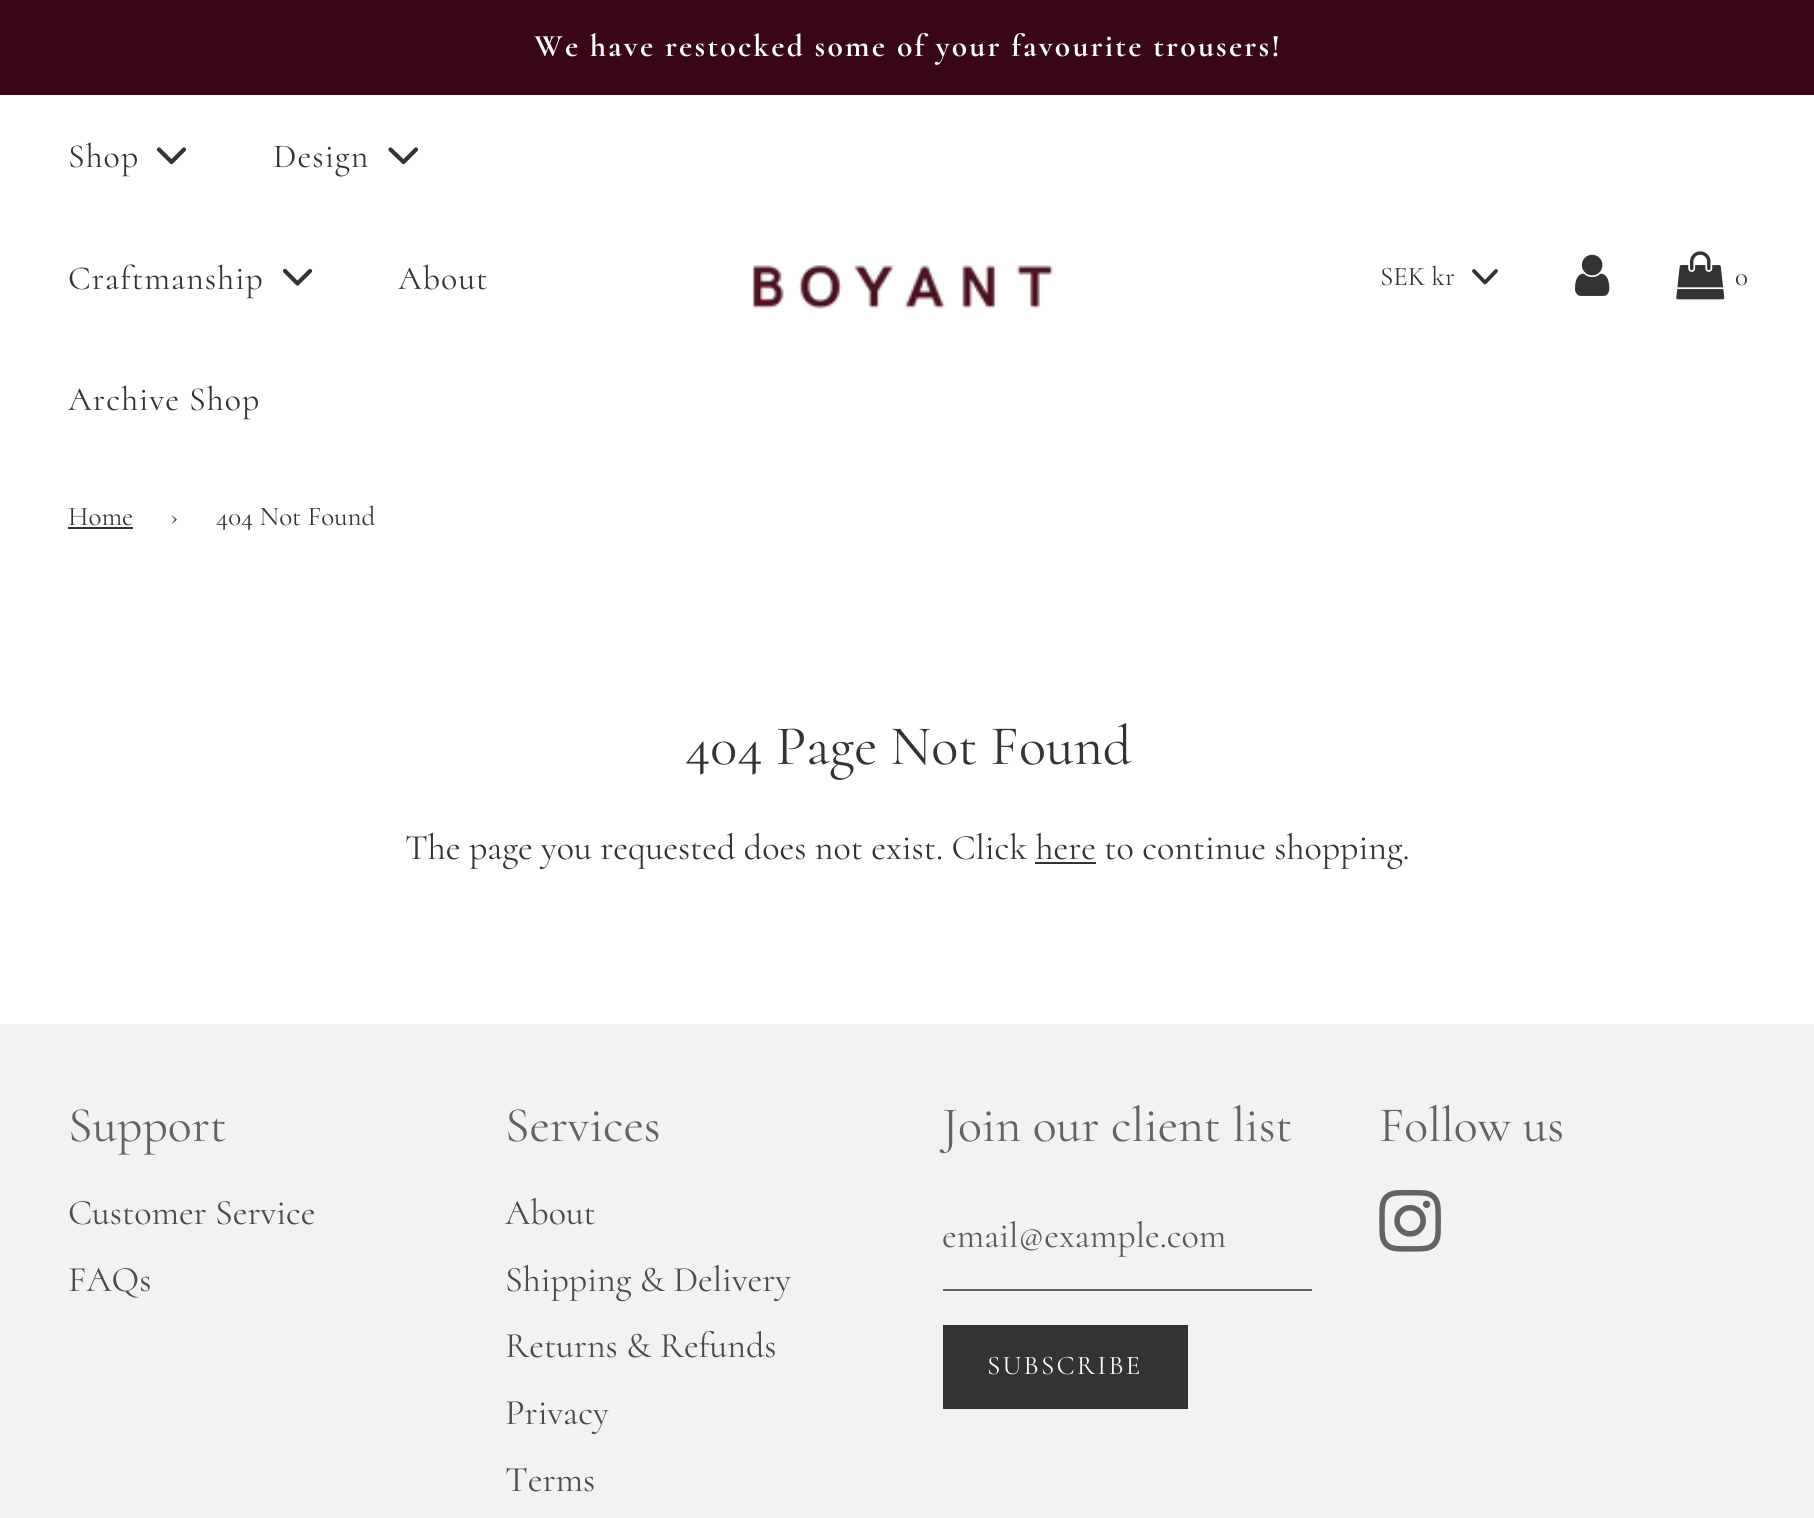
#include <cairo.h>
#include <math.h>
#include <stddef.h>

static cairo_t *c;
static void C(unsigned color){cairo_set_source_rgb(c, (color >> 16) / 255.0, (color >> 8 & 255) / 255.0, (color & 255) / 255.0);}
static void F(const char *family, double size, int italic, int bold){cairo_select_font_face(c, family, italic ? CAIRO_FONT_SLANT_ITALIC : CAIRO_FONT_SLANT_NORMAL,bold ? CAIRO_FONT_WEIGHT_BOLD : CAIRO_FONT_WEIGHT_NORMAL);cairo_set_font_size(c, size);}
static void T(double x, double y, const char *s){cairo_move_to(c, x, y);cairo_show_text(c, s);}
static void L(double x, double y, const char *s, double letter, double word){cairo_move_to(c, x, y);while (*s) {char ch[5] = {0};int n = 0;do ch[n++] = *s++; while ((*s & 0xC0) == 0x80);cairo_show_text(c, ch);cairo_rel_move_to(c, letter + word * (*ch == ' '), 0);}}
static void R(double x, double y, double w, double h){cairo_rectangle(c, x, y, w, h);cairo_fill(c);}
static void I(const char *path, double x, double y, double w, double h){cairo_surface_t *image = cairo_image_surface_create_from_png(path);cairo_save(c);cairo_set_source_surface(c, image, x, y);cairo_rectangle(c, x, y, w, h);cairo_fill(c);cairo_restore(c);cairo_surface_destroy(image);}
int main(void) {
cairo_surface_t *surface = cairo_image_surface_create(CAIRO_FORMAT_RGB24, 1814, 1518);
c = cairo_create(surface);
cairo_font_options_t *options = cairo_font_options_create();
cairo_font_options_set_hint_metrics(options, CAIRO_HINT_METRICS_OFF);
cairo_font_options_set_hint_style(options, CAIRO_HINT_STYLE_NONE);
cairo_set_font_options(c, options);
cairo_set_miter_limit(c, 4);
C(0xffffff);
cairo_paint(c);
C(0x390615);
R(0,0,1814,95);
F("Cormorant",31.5,0,1);
C(0xffffff);
L(534,56,"We have restocked some of your favourite trousers!",2.25,0);
F("Cormorant",33.75,0,0);
C(0x333333);
L(68,167,"Shop",1.1,0);
cairo_new_path(c);
cairo_move_to(c,159,149.5);
cairo_line_to(c,171.5,162);
cairo_line_to(c,184,149.5);
cairo_set_line_width(c,4.2);
cairo_set_line_cap(c,CAIRO_LINE_CAP_ROUND);
cairo_set_line_join(c,CAIRO_LINE_JOIN_ROUND);
cairo_stroke(c);
L(273,167,"Design",1.1,0);
cairo_new_path(c);
cairo_move_to(c,390.5,149.5);
cairo_line_to(c,403.5,162);
cairo_line_to(c,416,149.5);
cairo_stroke(c);
L(68,289,"Craftmanship",1.1,0);
cairo_new_path(c);
cairo_move_to(c,285,271);
cairo_line_to(c,297.5,283.5);
cairo_line_to(c,310,271);
cairo_stroke(c);
L(398,289,"About",1.1,0);
L(68,410,"Archive Shop",1.1,0);
I("1.png",752,265,302,44);
F("Cormorant",27,0,0);
T(1380,285,"SEK kr");
cairo_new_path(c);
cairo_move_to(c,1474,271);
cairo_line_to(c,1485,282.5);
cairo_line_to(c,1496,271);
cairo_set_line_width(c,3.8);
cairo_stroke(c);
I("2.png",1575,254,35,42);
I("3.png",1676,251,49,49);
T(1735,285,"0");
T(68,525,"Home");
R(68,527,65,2);
T(170,525,"›");
T(216,525,"404 Not Found");
F("Cormorant",56.25,0,0);
T(685,764,"404 Page Not Found");
F("Cormorant",36,0,0);
T(405,859,"The page you requested does not exist. Click here to continue shopping.");
R(1035,862,61,2);
C(0xf2f2f2);
R(0,1024,1814,494);
F("Cormorant",49.75,0,0);
C(0x636363);
T(68,1141,"Support");
F("Cormorant",36,0,0);
C(0x4a4a4a);
T(68,1224,"Customer Service");
T(68,1291,"FAQs");
F("Cormorant",49.75,0,0);
C(0x636363);
T(505,1141,"Services");
F("Cormorant",36,0,0);
C(0x4a4a4a);
T(505,1224,"About");
T(505,1291,"Shipping & Delivery");
T(505,1357,"Returns & Refunds");
T(505,1424,"Privacy");
T(505,1491,"Terms");
F("Cormorant",49.75,0,0);
C(0x636363);
T(942,1141,"Join our client list");
R(943,1289,369,2);
F("Cormorant",36,0,0);
C(0x595959);
T(942,1247,"email@example.com");
C(0x333333);
R(943,1325,245,84);
F("Cormorant",27,0,0);
C(0xffffff);
L(987,1374,"SUBSCRIBE",2.25,0);
F("Cormorant",49.75,0,0);
C(0x636363);
T(1379,1141,"Follow us");
I("4.png",1379,1189,62,63);
cairo_surface_write_to_png(surface, "o.png");
cairo_font_options_destroy(options);
cairo_destroy(c);
cairo_surface_destroy(surface);
return 0;
}
